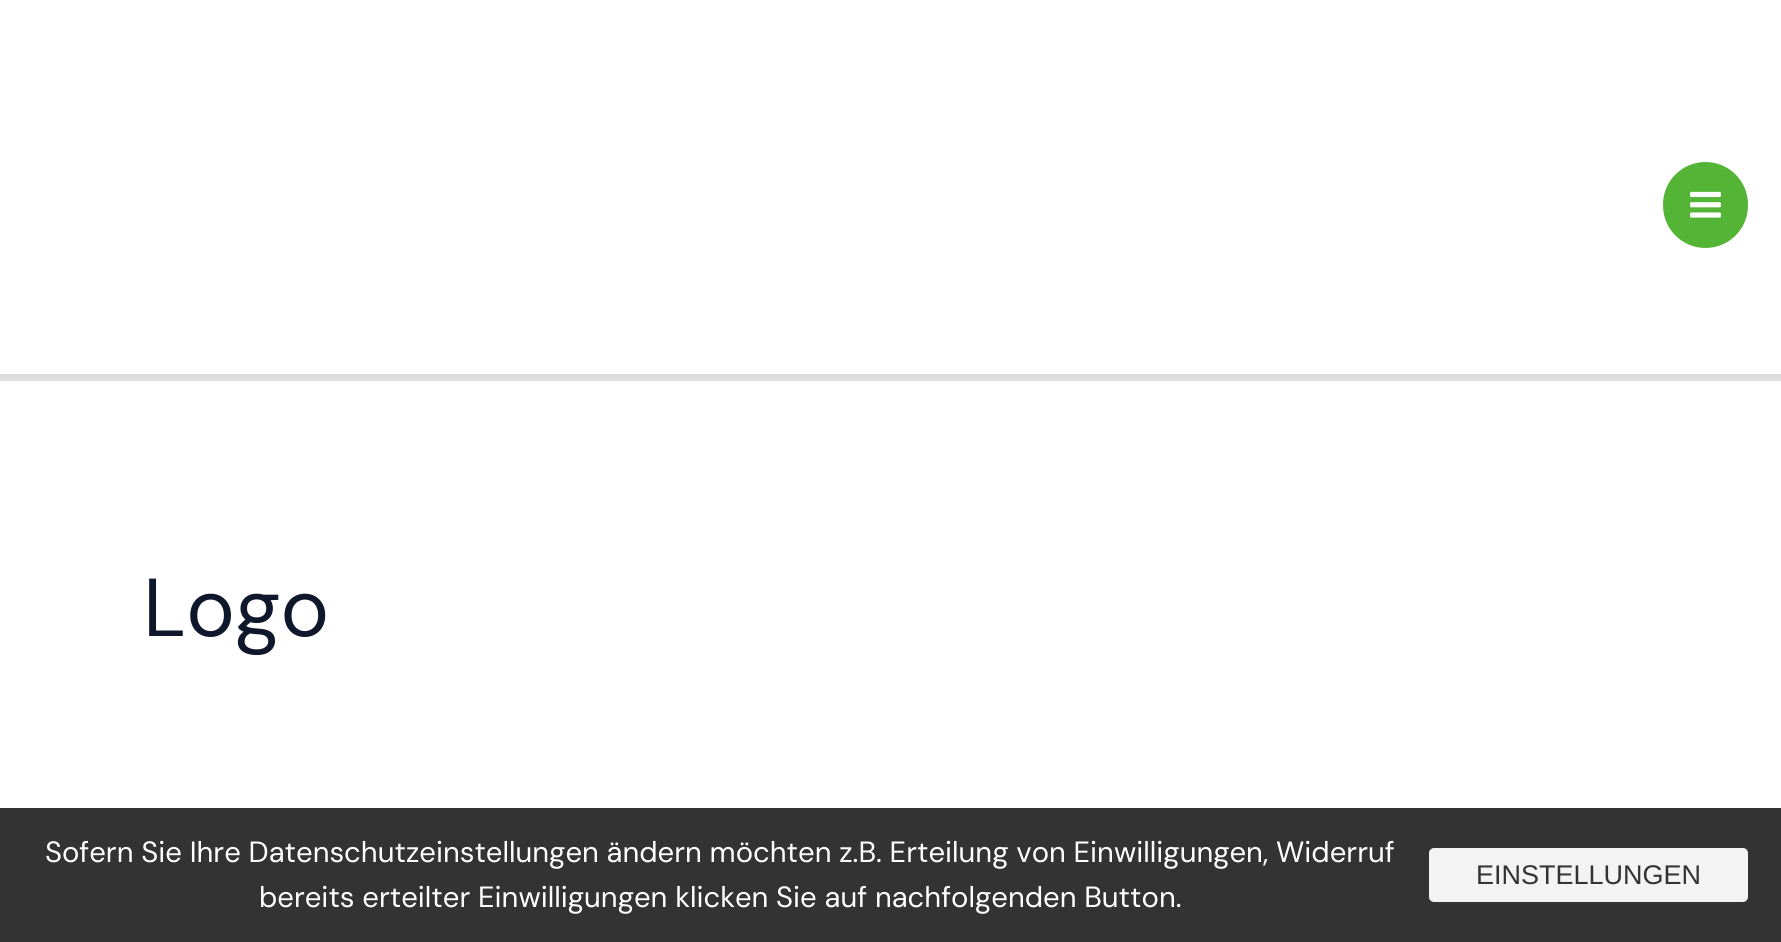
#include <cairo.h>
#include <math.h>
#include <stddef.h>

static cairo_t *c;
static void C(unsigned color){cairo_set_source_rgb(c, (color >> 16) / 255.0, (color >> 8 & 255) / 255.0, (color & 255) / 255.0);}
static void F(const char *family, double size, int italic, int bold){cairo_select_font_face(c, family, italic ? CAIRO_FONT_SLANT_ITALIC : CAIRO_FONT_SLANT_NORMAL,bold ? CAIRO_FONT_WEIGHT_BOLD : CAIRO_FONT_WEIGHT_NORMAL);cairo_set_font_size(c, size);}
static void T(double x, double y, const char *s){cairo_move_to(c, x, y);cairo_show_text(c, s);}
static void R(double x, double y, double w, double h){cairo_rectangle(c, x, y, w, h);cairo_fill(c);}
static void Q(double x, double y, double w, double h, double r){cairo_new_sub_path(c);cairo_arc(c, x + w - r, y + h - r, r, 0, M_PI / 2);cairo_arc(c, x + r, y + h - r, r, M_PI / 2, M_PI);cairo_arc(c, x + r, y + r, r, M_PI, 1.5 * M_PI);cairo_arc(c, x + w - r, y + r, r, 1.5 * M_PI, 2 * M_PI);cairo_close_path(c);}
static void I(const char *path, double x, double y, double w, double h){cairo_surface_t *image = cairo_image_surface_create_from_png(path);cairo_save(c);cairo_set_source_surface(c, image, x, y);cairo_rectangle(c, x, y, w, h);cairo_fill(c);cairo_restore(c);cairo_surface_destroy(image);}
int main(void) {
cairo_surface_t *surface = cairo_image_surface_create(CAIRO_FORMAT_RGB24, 1781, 942);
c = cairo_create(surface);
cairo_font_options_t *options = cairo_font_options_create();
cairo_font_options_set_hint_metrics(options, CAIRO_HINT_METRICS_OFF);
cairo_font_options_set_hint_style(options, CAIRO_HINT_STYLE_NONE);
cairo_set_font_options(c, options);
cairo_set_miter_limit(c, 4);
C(0xffffff);
cairo_paint(c);
C(0xdddddd);
R(0,374,1781,7);
C(0x54b435);
Q(1663,162,85,86,42.5);
cairo_fill(c);
I("1.png",1690,191,31,27);
F("DM Sans",82,0,0);
C(0x0f172a);
T(143,636,"Logo");
C(0x333333);
R(0,808,1781,134);
F("DM Sans",29.25,0,0);
C(0xffffff);
T(45,862,"Sofern Sie Ihre Datenschutzeinstellungen ändern möchten z.B. Erteilung von Einwilligungen, Widerruf");
T(259,907,"bereits erteilter Einwilligungen klicken Sie auf nachfolgenden Button.");
C(0xf3f3f3);
Q(1430,849,317,52,4);
cairo_fill_preserve(c);
cairo_stroke(c);
F("Liberation Sans",27,0,0);
C(0x333333);
T(1476,884,"EINSTELLUNGEN");
cairo_surface_write_to_png(surface, "o.png");
cairo_font_options_destroy(options);
cairo_destroy(c);
cairo_surface_destroy(surface);
return 0;
}
